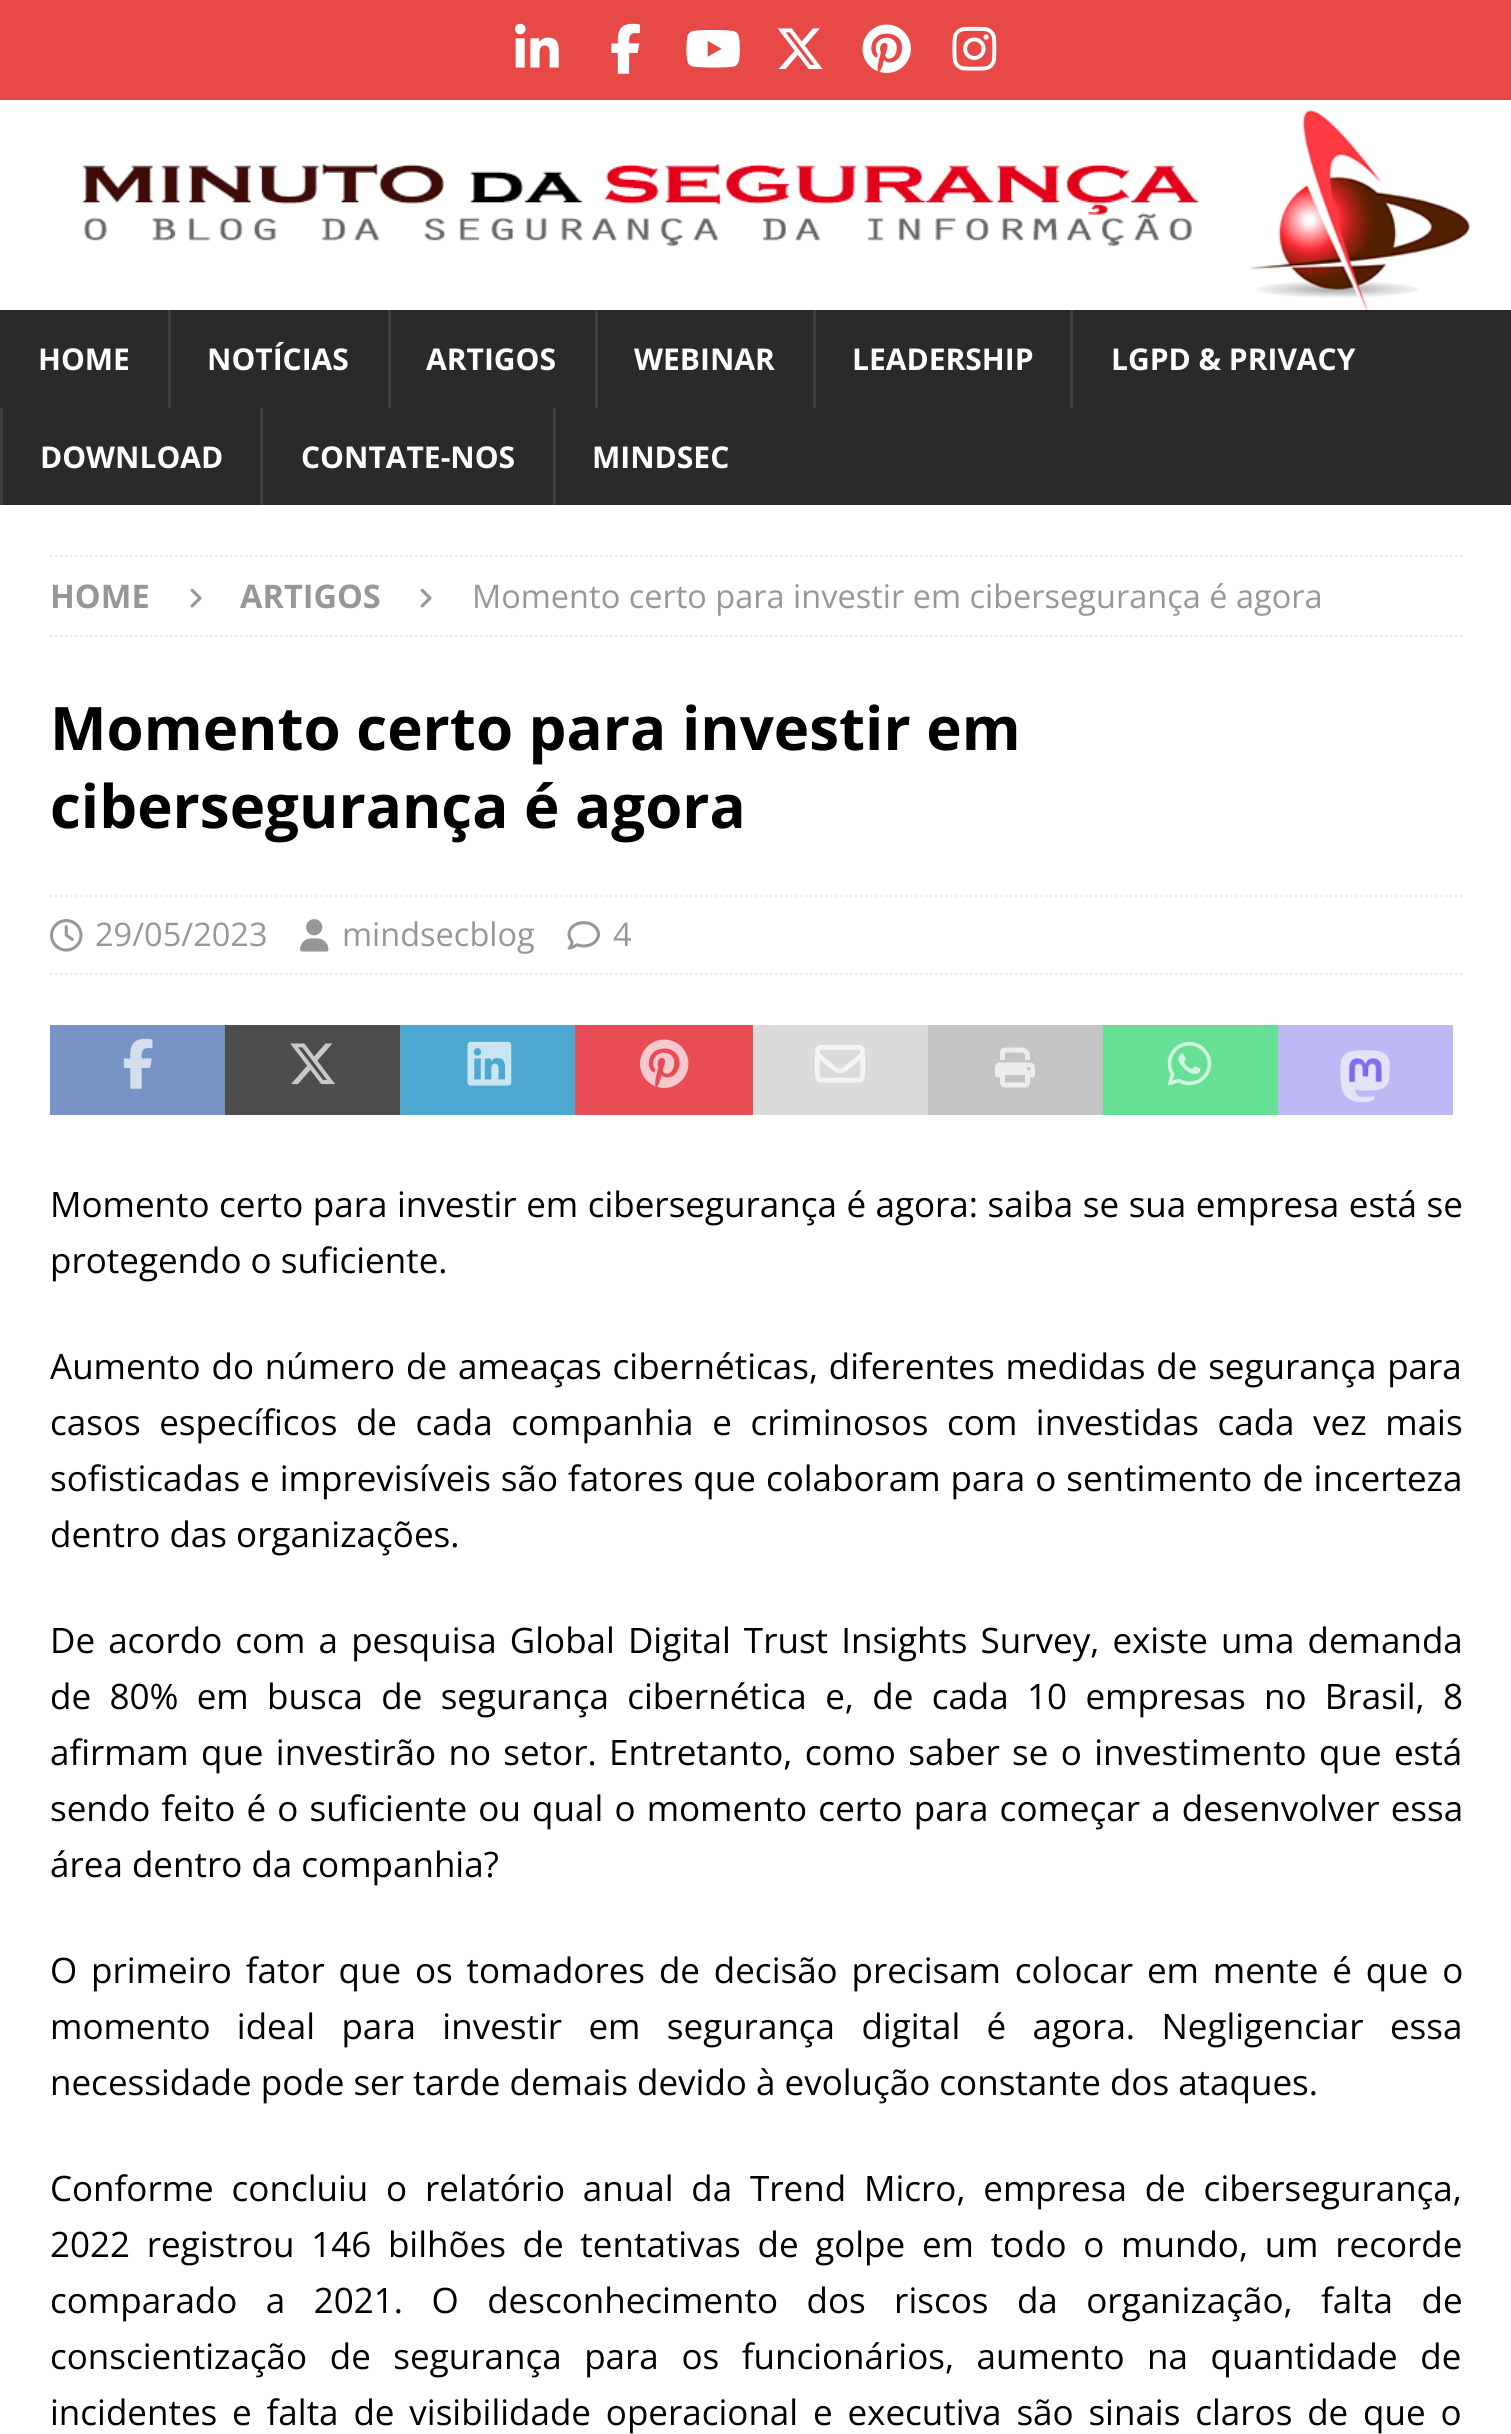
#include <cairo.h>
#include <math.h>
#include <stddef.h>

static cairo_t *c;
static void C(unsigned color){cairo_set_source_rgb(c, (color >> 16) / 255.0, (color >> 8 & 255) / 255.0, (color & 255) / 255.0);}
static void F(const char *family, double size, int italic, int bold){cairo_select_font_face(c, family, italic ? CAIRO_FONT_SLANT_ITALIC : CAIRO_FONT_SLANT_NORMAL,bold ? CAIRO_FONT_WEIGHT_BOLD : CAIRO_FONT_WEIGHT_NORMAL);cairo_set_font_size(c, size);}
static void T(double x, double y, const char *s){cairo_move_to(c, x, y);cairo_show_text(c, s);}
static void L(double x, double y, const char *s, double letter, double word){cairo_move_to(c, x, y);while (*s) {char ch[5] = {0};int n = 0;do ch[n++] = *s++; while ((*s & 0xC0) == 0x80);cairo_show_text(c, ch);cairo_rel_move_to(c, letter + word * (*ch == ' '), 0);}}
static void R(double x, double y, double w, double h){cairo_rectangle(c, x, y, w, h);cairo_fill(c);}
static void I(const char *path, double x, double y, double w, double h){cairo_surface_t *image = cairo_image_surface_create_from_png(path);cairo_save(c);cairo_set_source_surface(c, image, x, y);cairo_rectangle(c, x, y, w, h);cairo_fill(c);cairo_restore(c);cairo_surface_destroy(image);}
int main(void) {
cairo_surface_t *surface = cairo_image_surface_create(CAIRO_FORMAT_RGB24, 1511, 2434);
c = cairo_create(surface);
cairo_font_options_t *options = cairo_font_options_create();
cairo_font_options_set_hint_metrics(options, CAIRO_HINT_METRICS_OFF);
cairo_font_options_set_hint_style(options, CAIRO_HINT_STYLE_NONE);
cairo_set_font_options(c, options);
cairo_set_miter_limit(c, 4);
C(0xe64946);
cairo_paint(c);
I("1.png",515,23,44,45);
I("2.png",611,23,29,51);
I("3.png",686,30,54,38);
I("4.png",777,28,46,42);
I("5.png",862,24,49,49);
I("6.png",952,26,45,45);
C(0xffffff);
R(0,100,1511,210);
I("7.png",82,109,1389,201);
C(0x2a2a2a);
R(0,310,1511,195);
F("Open Sans",30,0,1);
C(0xffffff);
T(38,370,"HOME");
C(0x3f3f3f);
R(168,310,3,98);
C(0xffffff);
T(207,370,"NOTÍCIAS");
C(0x3f3f3f);
R(388,310,3,98);
C(0xffffff);
T(426,370,"ARTIGOS");
C(0x3f3f3f);
R(595,310,3,98);
C(0xffffff);
T(634,370,"WEBINAR");
C(0x3f3f3f);
R(813,310,3,98);
C(0xffffff);
T(852,370,"LEADERSHIP");
C(0x3f3f3f);
R(1070,310,3,98);
C(0xffffff);
T(1111,370,"LGPD & PRIVACY");
C(0x3f3f3f);
R(0,408,3,97);
C(0xffffff);
T(40,468,"DOWNLOAD");
C(0x3f3f3f);
R(260,408,3,97);
C(0xffffff);
T(301,468,"CONTATE-NOS");
C(0x3f3f3f);
R(553,408,3,97);
C(0xffffff);
T(592,468,"MINDSEC");
R(0,505,1511,1929);
cairo_save(c);
cairo_rectangle(c,50,555,1413,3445);
cairo_clip(c);
cairo_new_path(c);
cairo_move_to(c,50,556);
cairo_line_to(c,1462.5,556);
C(0xebebeb);
cairo_set_line_width(c,2.5);
cairo_set_dash(c,(double[]){2.5,2.5},2,0);
cairo_stroke(c);
cairo_restore(c);
cairo_new_path(c);
cairo_move_to(c,50,636);
cairo_line_to(c,1462.5,636);
C(0xebebeb);
cairo_set_line_width(c,2.5);
cairo_set_dash(c,(double[]){2.5,2.5},2,0);
cairo_stroke(c);
F("Open Sans",32.5,0,1);
C(0x979797);
T(50,608,"HOME");
I("8.png",190,588,12,20);
T(240,608,"ARTIGOS");
I("8.png",420,588,12,20);
F("Open Sans",32.5,0,0);
T(472,608,"Momento certo para investir em cibersegurança é agora");
F("Open Sans",60,0,1);
C(0x000000);
T(50,750,"Momento certo para investir em");
T(50,828,"cibersegurança é agora");
cairo_new_path(c);
cairo_move_to(c,50,896);
cairo_line_to(c,1462.5,896);
C(0xebebeb);
cairo_stroke(c);
cairo_new_path(c);
cairo_move_to(c,50,974);
cairo_line_to(c,1462.5,974);
cairo_stroke(c);
I("9.png",50,919,33,33);
F("Open Sans",32.5,0,0);
C(0x979797);
T(95,946,"29/05/2023");
I("10.png",300,919,29,33);
T(342,946,"mindsecblog");
I("11.png",567,921,33,29);
T(613,946,"4");
C(0x7893c6);
R(50,1025,175,90);
I("12.png",123,1038,30,51);
C(0x4d4d4d);
R(225,1025,175,90);
I("13.png",290,1043,45,42);
C(0x4da9d2);
R(400,1025,175,90);
I("14.png",467,1041,45,45);
C(0xe84d56);
R(575,1025,178,90);
I("15.png",640,1039,49,49);
C(0xdbdbdb);
R(753,1025,175,90);
I("16.png",815,1045,50,38);
C(0xc4c4c4);
R(928,1025,175,90);
I("17.png",995,1047,40,41);
C(0x66e094);
R(1103,1025,175,90);
I("18.png",1167,1041,45,45);
C(0xbdb9f5);
R(1278,1025,175,90);
I("19.png",1340,1050,50,53);
F("Open Sans",35,0,0);
C(0x000000);
L(50,1217,"Momento certo para investir em cibersegurança é agora: saiba se sua empresa está se",0,.4);
T(50,1273,"protegendo o suficiente.");
L(50,1379,"Aumento do número de ameaças cibernéticas, diferentes medidas de segurança para",0,1.75);
L(50,1435,"casos específicos de cada companhia e criminosos com investidas cada vez mais",0,9.5);
L(50,1491,"sofisticadas e imprevisíveis são fatores que colaboram para o sentimento de incerteza",0,.9);
T(50,1547,"dentro das organizações.");
L(50,1653,"De acordo com a pesquisa Global Digital Trust Insights Survey, existe uma demanda",0,4);
L(50,1709,"de 80% em busca de segurança cibernética e, de cada 10 empresas no Brasil, 8",0,9.25);
L(50,1765,"afirmam que investirão no setor. Entretanto, como saber se o investimento que está",0,3.25);
L(50,1821,"sendo feito é o suficiente ou qual o momento certo para começar a desenvolver essa",0,2.1);
T(50,1877,"área dentro da companhia?");
L(50,1983,"O primeiro fator que os tomadores de decisão precisam colocar em mente é que o",0,4.75);
L(50,2039,"momento ideal para investir em segurança digital é agora. Negligenciar essa",0,17.25);
T(50,2095,"necessidade pode ser tarde demais devido à evolução constante dos ataques.");
L(50,2201,"Conforme concluiu o relatório anual da Trend Micro, empresa de cibersegurança,",0,8.75);
L(50,2257,"2022 registrou 146 bilhões de tentativas de golpe em todo o mundo, um recorde",0,7.6);
L(50,2313,"comparado a 2021. O desconhecimento dos riscos da organização, falta de",0,19.4);
L(50,2369,"conscientização de segurança para os funcionários, aumento na quantidade de",0,13.5);
L(50,2425,"incidentes e falta de visibilidade operacional e executiva são sinais claros de que o",0,5.75);
cairo_surface_write_to_png(surface, "o.png");
cairo_font_options_destroy(options);
cairo_destroy(c);
cairo_surface_destroy(surface);
return 0;
}
